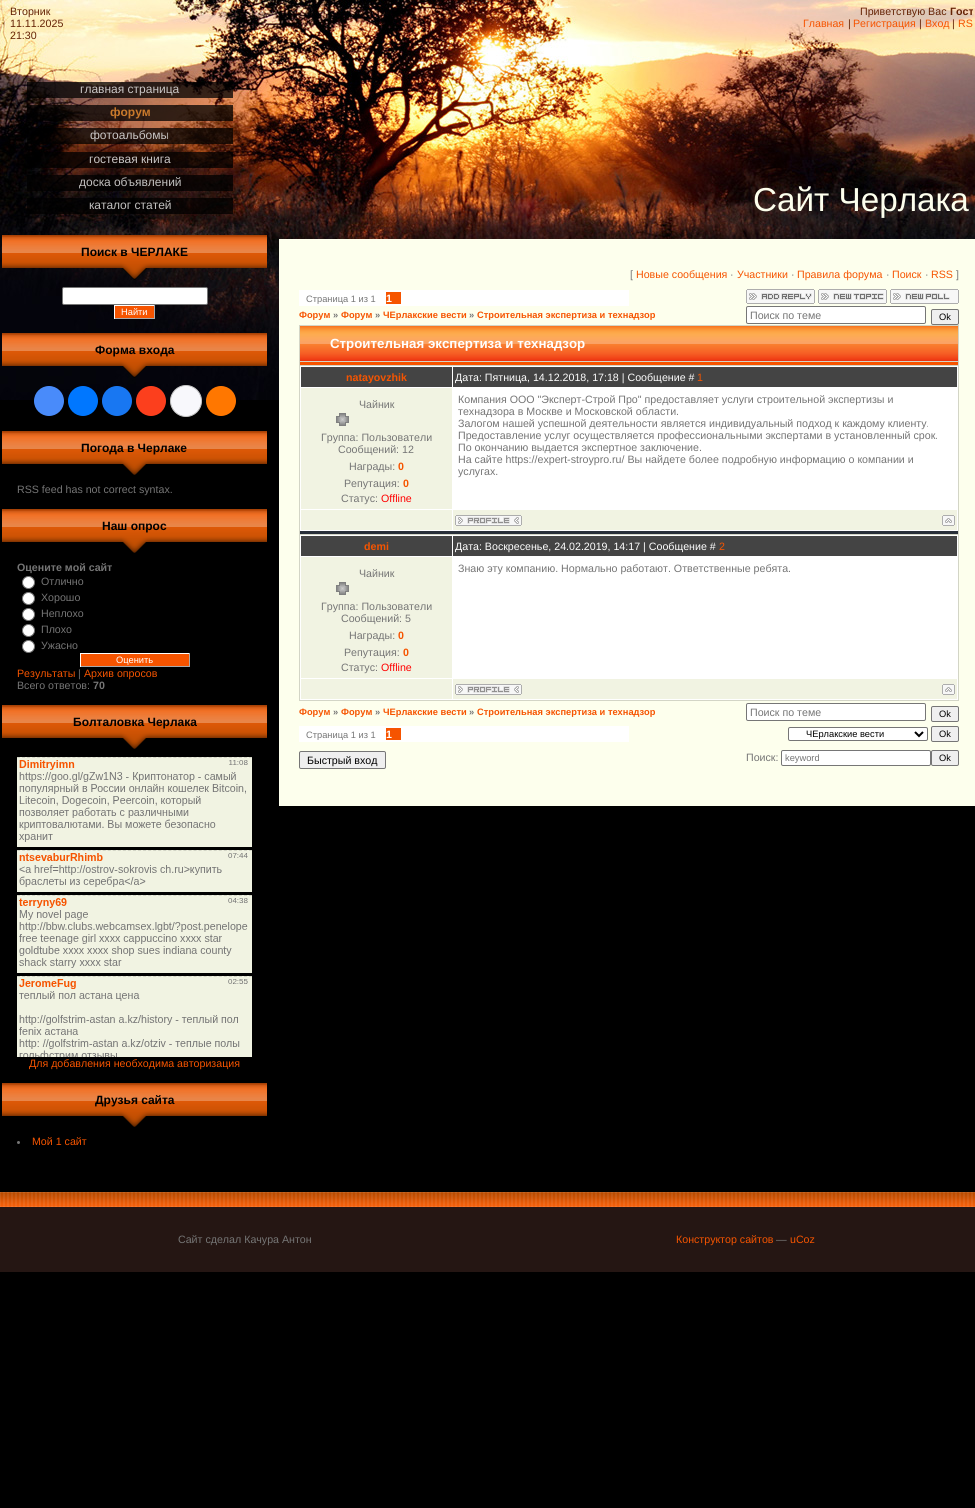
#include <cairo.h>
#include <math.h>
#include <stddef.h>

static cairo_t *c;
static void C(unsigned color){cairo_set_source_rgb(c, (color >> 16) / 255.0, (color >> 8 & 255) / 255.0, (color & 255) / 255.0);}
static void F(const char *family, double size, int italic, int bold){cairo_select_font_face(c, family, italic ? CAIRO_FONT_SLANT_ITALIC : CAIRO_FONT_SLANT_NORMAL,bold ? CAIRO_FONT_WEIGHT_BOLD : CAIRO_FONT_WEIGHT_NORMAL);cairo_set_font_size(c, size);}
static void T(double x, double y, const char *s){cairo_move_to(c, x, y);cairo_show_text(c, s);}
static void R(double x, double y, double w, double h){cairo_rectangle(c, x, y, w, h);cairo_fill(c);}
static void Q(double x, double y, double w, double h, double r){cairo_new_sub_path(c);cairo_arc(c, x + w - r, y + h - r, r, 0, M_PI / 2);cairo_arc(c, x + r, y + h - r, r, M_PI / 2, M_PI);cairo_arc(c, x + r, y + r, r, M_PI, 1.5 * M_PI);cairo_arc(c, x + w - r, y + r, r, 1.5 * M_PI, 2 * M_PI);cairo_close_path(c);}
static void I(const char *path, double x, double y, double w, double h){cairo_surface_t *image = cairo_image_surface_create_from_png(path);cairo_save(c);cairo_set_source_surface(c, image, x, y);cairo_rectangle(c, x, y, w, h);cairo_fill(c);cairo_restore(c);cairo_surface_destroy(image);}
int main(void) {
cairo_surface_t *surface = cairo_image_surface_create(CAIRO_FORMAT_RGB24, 975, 1508);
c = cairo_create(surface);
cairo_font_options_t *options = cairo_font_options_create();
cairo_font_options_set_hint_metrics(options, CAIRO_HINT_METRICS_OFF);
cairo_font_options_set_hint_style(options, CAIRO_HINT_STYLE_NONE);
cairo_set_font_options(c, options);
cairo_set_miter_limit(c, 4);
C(0x000000);
cairo_paint(c);
I("1.png",0,0,975,400);
F("Liberation Sans",10.65,0,0);
C(0x652305);
T(10,15,"Вторник");
T(10,27,"11.11.2025");
T(10,39,"21:30");
T(860,15,"Приветствую Вас");
F("Liberation Sans",10.65,0,1);
T(950,15,"Гост");
F("Liberation Sans",10.65,0,0);
C(0xf65400);
T(803,27,"Главная");
C(0x652305);
T(848,27,"|");
C(0xf65400);
T(853,27,"Регистрация");
C(0x652305);
T(919,27,"|");
C(0xf65400);
T(925,27,"Вход");
C(0x652305);
T(952,27,"|");
C(0xf65400);
T(958,27,"RS");
cairo_set_source_rgba(c,0,0,0,0.75);
R(27,82,206,16);
F("Liberation Sans",12,0,0);
C(0xc9c6c5);
T(80,93,"главная страница");
cairo_set_source_rgba(c,0,0,0,0.75);
R(27,105,206,16);
F("Liberation Sans",12,0,1);
C(0xc9792b);
T(110,116,"форум");
cairo_set_source_rgba(c,0,0,0,0.75);
R(27,128,206,16);
F("Liberation Sans",12,0,0);
C(0xc9c6c5);
T(90,139,"фотоальбомы");
cairo_set_source_rgba(c,0,0,0,0.75);
R(27,152,206,16);
C(0xc9c6c5);
T(89,163,"гостевая книга");
cairo_set_source_rgba(c,0,0,0,0.75);
R(27,175,206,16);
C(0xc2c1c0);
T(79,186,"доска объявлений");
cairo_set_source_rgba(c,0,0,0,0.75);
R(27,198,206,16);
C(0xc2c1c0);
T(89,209,"каталог статей");
I("2.png",2,235,265,45);
F("Liberation Sans",12,0,1);
C(0x000000);
T(81,256,"Поиск в ЧЕРЛАКЕ");
C(0xffffff);
Q(62.5,287.5,145,17,1.5);
cairo_fill_preserve(c);
C(0x767676);
cairo_set_line_width(c,1);
cairo_stroke(c);
C(0xf65400);
R(115,306,39,12);
C(0xffffff);
R(114,305,41,1);
C(0xaaaaaa);
R(154,305,1,14);
R(114,318,41,1);
C(0xffffff);
R(114,305,1,14);
F("Liberation Sans",9.3,0,0);
T(121,315,"Найти");
I("3.png",2,333,265,45);
F("Liberation Sans",12,0,1);
C(0x000000);
T(95,354,"Форма входа");
C(0x498bfa);
cairo_new_path(c);
cairo_arc(c,49,401,15,0,2 * M_PI);
cairo_fill(c);
C(0x0077ff);
cairo_arc(c,83,401,15,0,2 * M_PI);
cairo_fill(c);
C(0x1877f2);
cairo_arc(c,117,401,15,0,2 * M_PI);
cairo_fill(c);
C(0xfc3f1d);
cairo_arc(c,151,401,15,0,2 * M_PI);
cairo_fill(c);
C(0xf8f8fc);
cairo_arc(c,186,401,15.5,0,2 * M_PI);
cairo_fill_preserve(c);
C(0xc4c4c4);
cairo_stroke(c);
C(0xff7700);
cairo_arc(c,221,401,15,0,2 * M_PI);
cairo_fill(c);
I("4.png",2,431,265,44);
C(0x000000);
T(81,452,"Погода в Черлаке");
F("Liberation Sans",10.65,0,0);
C(0x757575);
T(17,493,"RSS feed has not correct syntax.");
I("4.png",2,509,265,44);
F("Liberation Sans",12,0,1);
C(0x000000);
T(102,530,"Наш опрос");
F("Liberation Sans",10.65,0,1);
C(0x757575);
T(17,571,"Оцените мой сайт");
C(0xffffff);
cairo_new_path(c);
cairo_arc(c,28.5,582.5,6,0,2 * M_PI);
cairo_fill_preserve(c);
C(0x767676);
cairo_stroke(c);
F("Liberation Sans",10.65,0,0);
C(0x757575);
T(41,585,"Отлично");
C(0xffffff);
cairo_new_path(c);
cairo_arc(c,28.5,598.5,6,0,2 * M_PI);
cairo_fill_preserve(c);
C(0x767676);
cairo_stroke(c);
C(0x757575);
T(41,601,"Хорошо");
C(0xffffff);
cairo_new_path(c);
cairo_arc(c,28.5,614.5,6,0,2 * M_PI);
cairo_fill_preserve(c);
C(0x767676);
cairo_stroke(c);
C(0x757575);
T(41,617,"Неплохо");
C(0xffffff);
cairo_new_path(c);
cairo_arc(c,28.5,630.5,6,0,2 * M_PI);
cairo_fill_preserve(c);
C(0x767676);
cairo_stroke(c);
C(0x757575);
T(41,633,"Плохо");
C(0xffffff);
cairo_new_path(c);
cairo_arc(c,28.5,646.5,6,0,2 * M_PI);
cairo_fill_preserve(c);
C(0x767676);
cairo_stroke(c);
C(0x757575);
T(41,649,"Ужасно");
C(0xf65400);
R(81,654,108,12);
C(0xffffff);
R(80,653,110,1);
C(0xaaaaaa);
R(189,653,1,14);
R(80,666,110,1);
C(0xffffff);
R(80,653,1,14);
F("Liberation Sans",9.3,0,0);
T(116,663,"Оценить");
F("Liberation Sans",10.65,0,0);
C(0xf65400);
T(17,677,"Результаты");
C(0x757575);
T(78,677,"|");
C(0xf65400);
T(84,677,"Архив опросов");
C(0x757575);
T(17,689,"Всего ответов:");
F("Liberation Sans",10.65,0,1);
T(93,689,"70");
I("4.png",2,705,265,44);
F("Liberation Sans",12,0,1);
C(0x000000);
T(73,726,"Болталовка Черлака");
I("5.png",17,757,235,300);
F("Liberation Sans",10.65,0,0);
C(0xf65400);
T(29,1067,"Для добавления необходима авторизация");
I("4.png",2,1083,265,44);
F("Liberation Sans",12,0,1);
C(0x000000);
T(95,1104,"Друзья сайта");
C(0x757575);
cairo_new_path(c);
cairo_arc(c,18.5,1142.5,1.5,0,2 * M_PI);
cairo_fill(c);
F("Liberation Sans",10.65,0,0);
C(0xf65400);
T(32,1145,"Мой 1 сайт");
F("Liberation Sans",33.25,0,0);
C(0xfdffed);
T(753,211,"Сайт Черлака");
R(279,239,696,567);
F("Liberation Sans",10.65,0,0);
C(0x757575);
T(630,278,"[");
C(0xf65400);
T(636,278,"Новые сообщения");
C(0x757575);
T(730,278,"·");
C(0xf65400);
T(737,278,"Участники");
C(0x757575);
T(791,278,"·");
C(0xf65400);
T(797,278,"Правила форума");
C(0x757575);
T(886,278,"·");
C(0xf65400);
T(892,278,"Поиск");
C(0x757575);
T(925,278,"·");
C(0xf65400);
T(931,278,"RSS");
C(0x757575);
T(956,278,"]");
C(0xffffff);
R(299,290,330,16);
F("Liberation Sans",9.3,0,0);
C(0x757575);
T(306,302,"Страница 1 из 1");
C(0xf65400);
R(386,292,15,12);
F("Liberation Sans",10.65,0,1);
C(0xffffff);
T(386,302,"1");
I("6.png",746,289,69,15);
I("7.png",818,289,69,15);
I("8.png",890,289,69,15);
F("Liberation Sans",9.3,0,1);
C(0xf65400);
T(299,318,"Форум");
C(0x757575);
T(333,318,"»");
C(0xf65400);
T(341,318,"Форум");
C(0x757575);
T(375,318,"»");
C(0xf65400);
T(383,318,"ЧЕрлакские вести");
C(0x757575);
T(469,318,"»");
C(0xf65400);
T(477,318,"Строительная экспертиза и технадзор");
C(0xffffff);
Q(746.5,306.5,179,17,1.5);
cairo_fill_preserve(c);
C(0x767676);
cairo_stroke(c);
F("Liberation Sans",10.65,0,0);
C(0x757575);
T(750,319,"Поиск по теме");
C(0xefefef);
Q(931.5,309.5,27,15,1.5);
cairo_fill_preserve(c);
C(0x767676);
cairo_stroke(c);
F("Liberation Sans",9.3,0,0);
C(0x000000);
T(939,320,"Ok");
C(0xd3d5c6);
R(299,325,660,376);
I("9.png",300,326,658,35);
F("Liberation Sans",13.3,0,1);
C(0xffffff);
T(330,348,"Строительная экспертиза и технадзор");
C(0xf65400);
R(300,362,658,3);
C(0x282f39);
R(300,531,658,3);
C(0xffffff);
R(300,366,658,165);
C(0x444444);
R(301,367,151,20);
F("Liberation Sans",10.65,0,1);
C(0xf65400);
T(346,381,"natayovzhik");
C(0x444444);
R(453,367,504,20);
F("Liberation Sans",10.65,0,0);
C(0xffffff);
T(455,381,"Дата: Пятница, 14.12.2018, 17:18 | Сообщение #");
C(0xf65400);
T(697,381,"1");
C(0xf1f3e2);
R(301,388,151,121);
C(0x757575);
T(359,408,"Чайник");
I("10.png",336,413,13,13);
T(321,441,"Группа: Пользователи");
T(338,453,"Сообщений: 12");
T(349,470,"Награды:");
F("Liberation Sans",10.65,0,1);
C(0xf65400);
T(398,470,"0");
F("Liberation Sans",10.65,0,0);
C(0x757575);
T(344,487,"Репутация:");
F("Liberation Sans",10.65,0,1);
C(0xf65400);
T(403,487,"0");
F("Liberation Sans",10.65,0,0);
C(0x757575);
T(341,502,"Статус:");
C(0xff0000);
T(381,502,"Offline");
C(0x757575);
T(458,403,"Компания ООО \"Эксперт-Строй Про\" предоставляет услуги строительной экспертизы и");
T(458,415,"технадзора в Москве и Московской области.");
T(458,427,"Залогом нашей успешной деятельности является индивидуальный подход к каждому клиенту.");
T(458,439,"Предоставление услуг осуществляется профессиональными экспертами в установленный срок.");
T(458,451,"По окончанию выдается экспертное заключение.");
T(458,463,"На сайте https://expert-stroypro.ru/ Вы найдете более подробную информацию о компании и");
T(458,475,"услугах.");
C(0xf1f3e2);
R(301,510,151,20);
R(453,510,504,20);
I("11.png",455,515,67,11);
I("12.png",942,515,13,11);
C(0xffffff);
R(300,535,658,165);
C(0x444444);
R(301,536,151,20);
F("Liberation Sans",10.65,0,1);
C(0xf65400);
T(364,550,"demi");
C(0x444444);
R(453,536,504,20);
F("Liberation Sans",10.65,0,0);
C(0xffffff);
T(455,550,"Дата: Воскресенье, 24.02.2019, 14:17 | Сообщение #");
C(0xf65400);
T(719,550,"2");
C(0xf1f3e2);
R(301,557,151,121);
C(0x757575);
T(359,577,"Чайник");
I("10.png",336,582,13,13);
T(321,610,"Группа: Пользователи");
T(341,622,"Сообщений: 5");
T(349,639,"Награды:");
F("Liberation Sans",10.65,0,1);
C(0xf65400);
T(398,639,"0");
F("Liberation Sans",10.65,0,0);
C(0x757575);
T(344,656,"Репутация:");
F("Liberation Sans",10.65,0,1);
C(0xf65400);
T(403,656,"0");
F("Liberation Sans",10.65,0,0);
C(0x757575);
T(341,671,"Статус:");
C(0xff0000);
T(381,671,"Offline");
C(0x757575);
T(458,572,"Знаю эту компанию. Нормально работают. Ответственные ребята.");
C(0xf1f3e2);
R(301,679,151,20);
R(453,679,504,20);
I("11.png",455,684,67,11);
I("12.png",942,684,13,11);
F("Liberation Sans",9.3,0,1);
C(0xf65400);
T(299,715,"Форум");
C(0x757575);
T(333,715,"»");
C(0xf65400);
T(341,715,"Форум");
C(0x757575);
T(375,715,"»");
C(0xf65400);
T(383,715,"ЧЕрлакские вести");
C(0x757575);
T(469,715,"»");
C(0xf65400);
T(477,715,"Строительная экспертиза и технадзор");
C(0xffffff);
Q(746.5,703.5,179,17,1.5);
cairo_fill_preserve(c);
C(0x767676);
cairo_stroke(c);
F("Liberation Sans",10.65,0,0);
C(0x757575);
T(750,716,"Поиск по теме");
C(0xefefef);
Q(931.5,706.5,27,15,1.5);
cairo_fill_preserve(c);
C(0x767676);
cairo_stroke(c);
F("Liberation Sans",9.3,0,0);
C(0x000000);
T(939,717,"Ok");
C(0xffffff);
R(299,726,330,16);
C(0x757575);
T(306,738,"Страница 1 из 1");
C(0xf65400);
R(386,728,15,12);
F("Liberation Sans",10.65,0,1);
C(0xffffff);
T(386,738,"1");
Q(788.5,727.5,139,13,1.5);
cairo_fill_preserve(c);
C(0x767676);
cairo_stroke(c);
cairo_new_path(c);
cairo_move_to(c,915,732);
cairo_line_to(c,919,736);
cairo_line_to(c,923,732);
C(0x000000);
cairo_set_line_width(c,2);
cairo_stroke(c);
F("Liberation Sans",9.3,0,0);
T(806,737,"ЧЕрлакские вести");
C(0xefefef);
Q(931.5,726.5,27,15,1.5);
cairo_fill_preserve(c);
C(0x767676);
cairo_set_line_width(c,1);
cairo_stroke(c);
C(0x000000);
T(939,737,"Ok");
C(0xefefef);
Q(299.5,751.5,86,17,1.5);
cairo_fill_preserve(c);
C(0x767676);
cairo_stroke(c);
F("Liberation Sans",10.65,0,0);
C(0x000000);
T(307,764,"Быстрый вход");
C(0x757575);
T(746,761,"Поиск:");
C(0xffffff);
Q(781.5,750.5,149,15,1.5);
cairo_fill_preserve(c);
C(0x767676);
cairo_stroke(c);
F("Liberation Sans",9.3,0,0);
C(0x757575);
T(785,761,"keyword");
C(0xefefef);
Q(931.5,750.5,27,15,1.5);
cairo_fill_preserve(c);
C(0x767676);
cairo_stroke(c);
C(0x000000);
T(939,761,"Ok");
C(0x251613);
R(0,1207,975,65);
I("13.png",0,1192,975,15);
F("Liberation Sans",10.65,0,0);
C(0x757575);
T(178,1243,"Сайт сделал Качура Антон");
C(0xf65400);
T(676,1243,"Конструктор сайтов");
C(0x757575);
T(776,1243,"—");
C(0xf65400);
T(790,1243,"uCoz");
cairo_surface_write_to_png(surface, "o.png");
cairo_font_options_destroy(options);
cairo_destroy(c);
cairo_surface_destroy(surface);
return 0;
}
